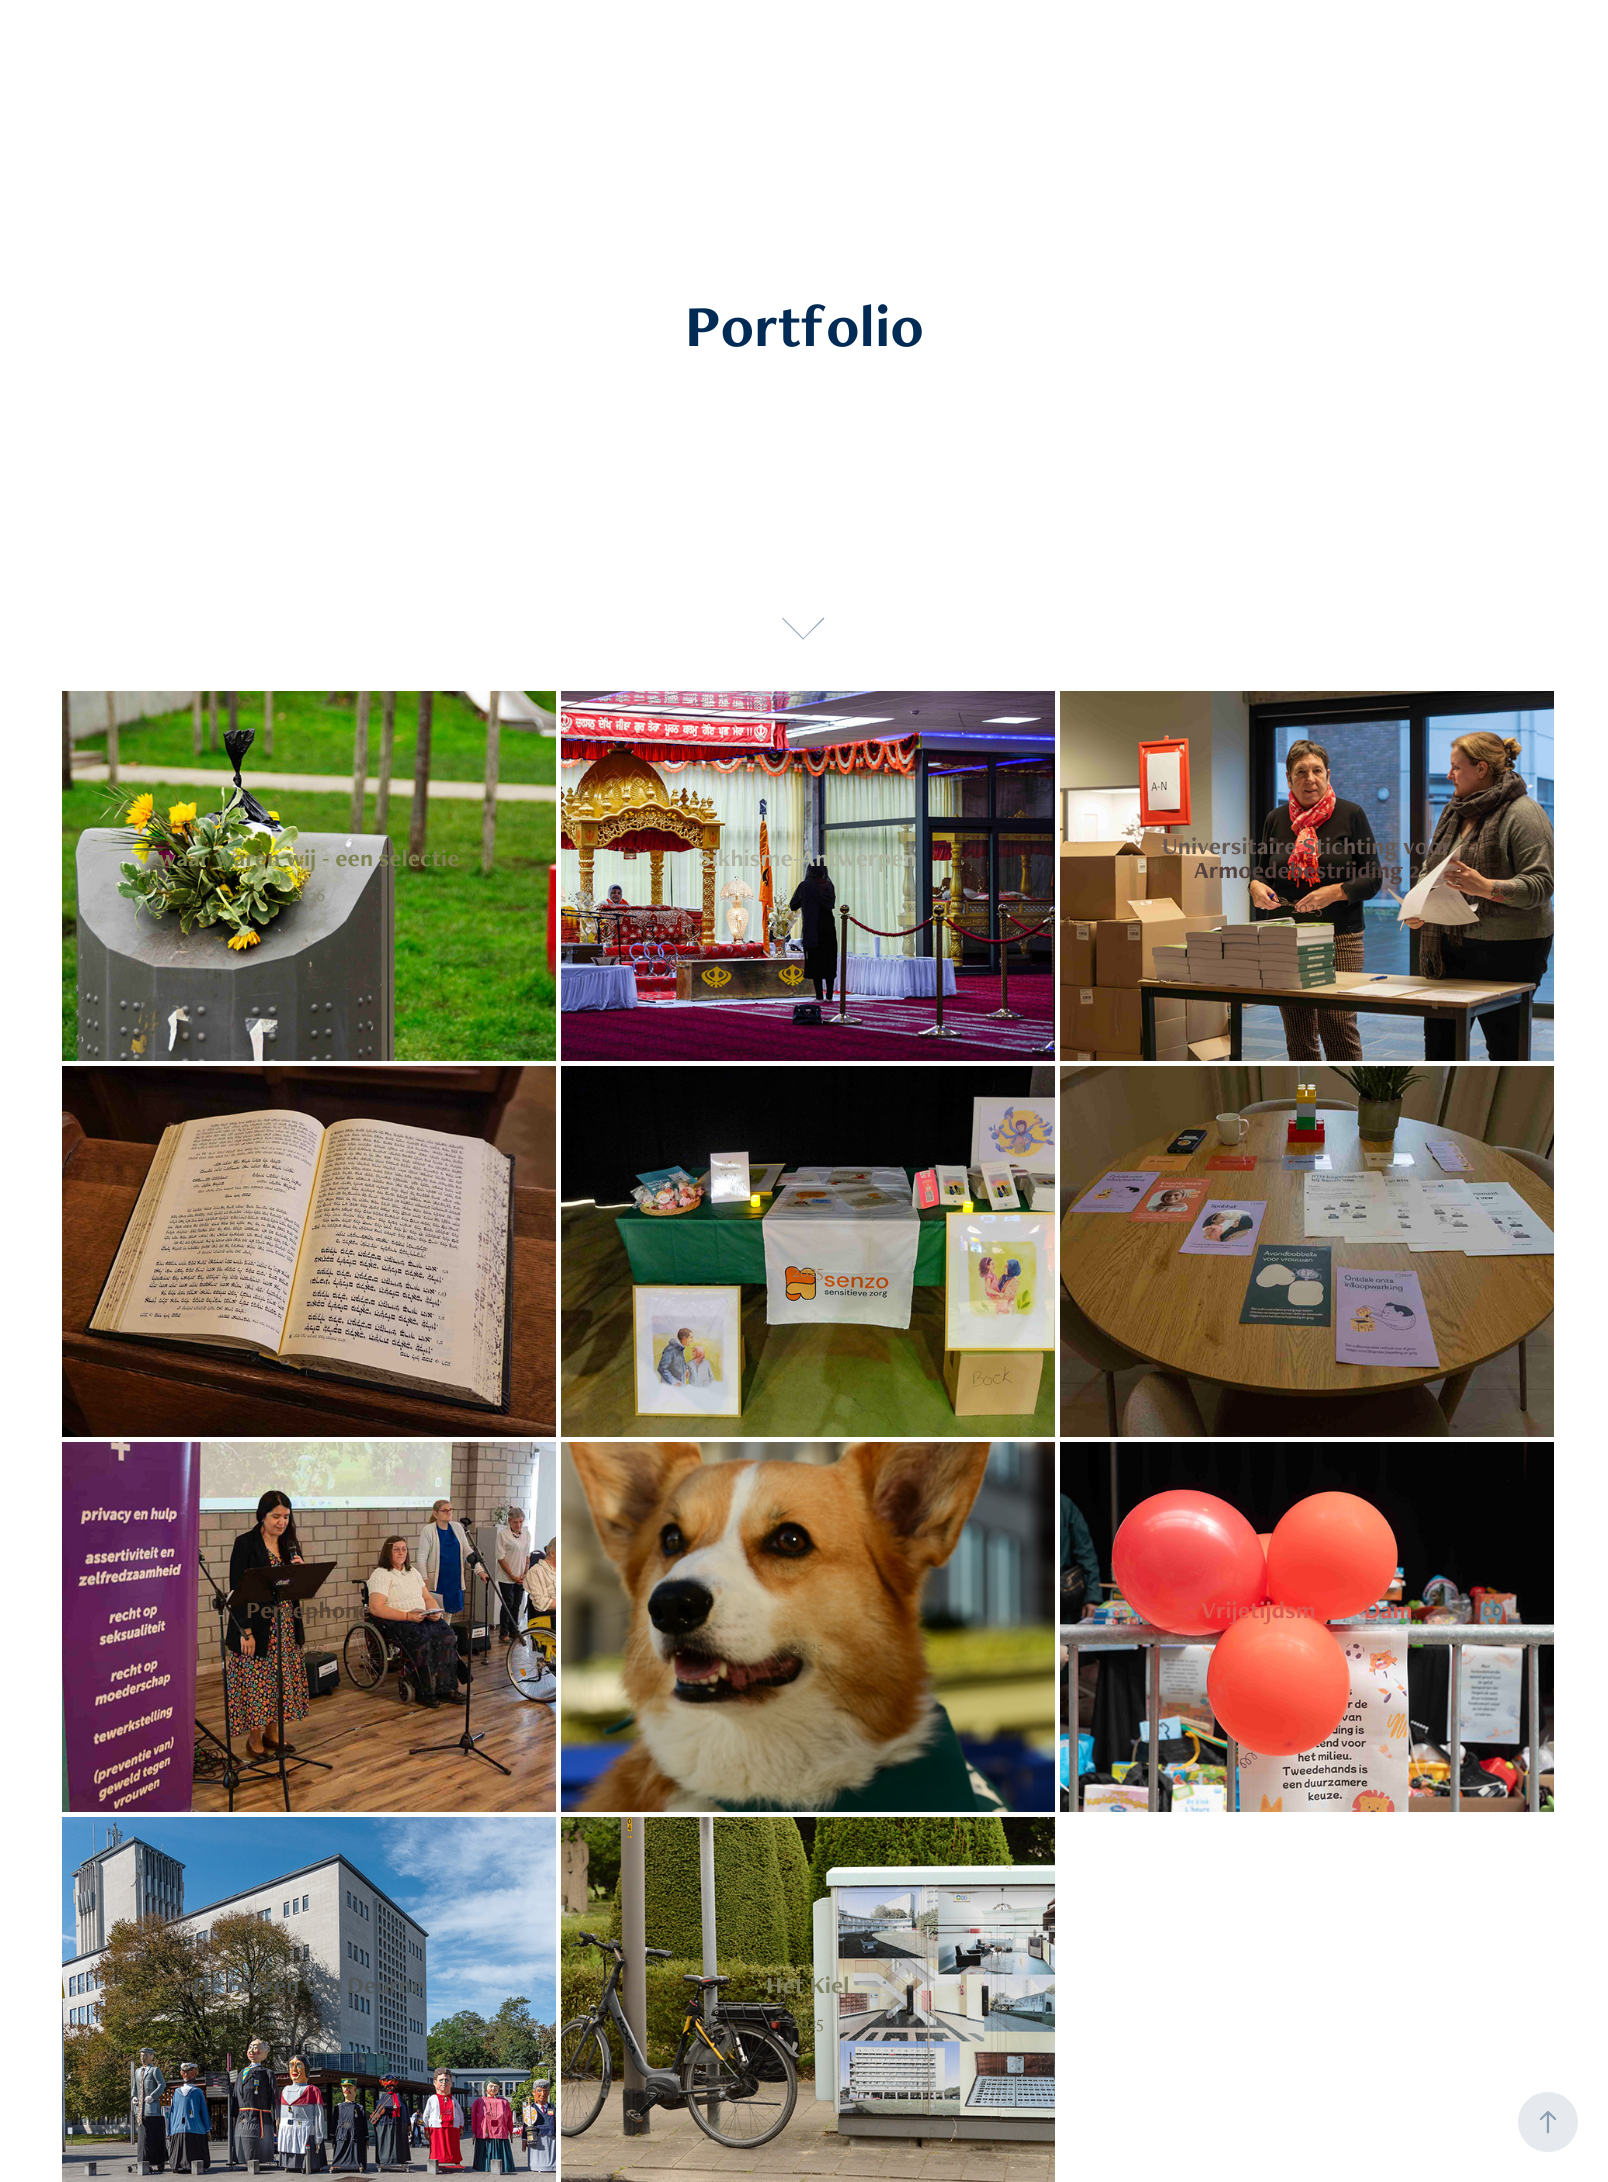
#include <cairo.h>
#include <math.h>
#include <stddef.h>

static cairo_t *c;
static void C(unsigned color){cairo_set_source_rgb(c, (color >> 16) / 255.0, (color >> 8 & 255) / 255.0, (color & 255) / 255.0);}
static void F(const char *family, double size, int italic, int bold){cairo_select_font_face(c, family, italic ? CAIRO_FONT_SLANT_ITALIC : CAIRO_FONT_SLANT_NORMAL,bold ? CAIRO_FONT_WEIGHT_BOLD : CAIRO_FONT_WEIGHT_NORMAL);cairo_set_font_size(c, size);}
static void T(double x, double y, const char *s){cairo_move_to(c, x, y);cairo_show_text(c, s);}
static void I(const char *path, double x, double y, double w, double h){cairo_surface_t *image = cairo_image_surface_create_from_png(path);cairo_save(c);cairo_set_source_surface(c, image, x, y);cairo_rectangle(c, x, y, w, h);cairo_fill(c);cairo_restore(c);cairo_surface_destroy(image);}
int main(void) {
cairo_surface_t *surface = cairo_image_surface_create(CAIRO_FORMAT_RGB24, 1608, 2182);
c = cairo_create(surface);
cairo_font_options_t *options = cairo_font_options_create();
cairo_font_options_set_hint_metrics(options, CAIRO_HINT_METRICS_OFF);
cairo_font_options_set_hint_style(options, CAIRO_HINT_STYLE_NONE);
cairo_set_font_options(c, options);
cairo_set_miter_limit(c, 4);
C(0xffffff);
cairo_paint(c);
F("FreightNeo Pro",60,0,1);
C(0x012b55);
T(685,346,"Portfolio");
C(0x91a1b4);
cairo_new_path(c);
cairo_move_to(c,823.5,617.5);
cairo_line_to(c,824.5,618.5);
cairo_line_to(c,803,639.5);
cairo_line_to(c,802.5,639);
cairo_close_path(c);
cairo_fill(c);
cairo_new_path(c);
cairo_move_to(c,782.5,617.5);
cairo_line_to(c,804,639);
cairo_line_to(c,803,639.5);
cairo_line_to(c,782,618.5);
cairo_close_path(c);
cairo_fill(c);
I("1.png",62,691,494,370);
F("FreightNeo Pro",24,0,1);
C(0x7e8350);
T(158,866,"waar waren wij - een selectie");
F("FreightNeo Pro",17,0,0);
C(0x81836a);
T(292,901,"2026");
I("2.png",561,691,494,370);
F("FreightNeo Pro",24,0,1);
C(0xafb29f);
T(698,866,"Sikhisme-Antwerpen");
I("3.png",1060,691,494,370);
C(0x675851);
T(1162,854,"Universitaire Stichting voor");
C(0x55413d);
T(1194,878,"Armoedebestrijding 2");
F("FreightNeo Pro",17,0,0);
C(0x724834);
T(1291,913,"2025");
I("4.png",62,1066,494,371);
I("5.png",561,1066,494,371);
C(0xa5744c);
T(792,1277,"2025");
I("6.png",1060,1066,494,371);
C(0x63676f);
T(1291,1277,"2025");
I("7.png",62,1442,494,370);
F("FreightNeo Pro",24,0,1);
C(0x594535);
T(246,1618,"Persephone");
F("FreightNeo Pro",17,0,0);
C(0x664d39);
T(293,1653,"2025");
I("8.png",1060,1442,494,370);
F("FreightNeo Pro",24,0,1);
C(0xde5a50);
T(1201,1618,"Vrijetijdsm");
T(1364,1618,"Dam");
I("9.png",561,1442,494,370);
F("FreightNeo Pro",17,0,0);
C(0x82693e);
T(792,1653,"2025");
I("10.png",62,1817,494,365);
F("FreightNeo Pro",24,0,1);
C(0x515656);
T(193,1993,"De reuzen van Deurne");
I("11.png",561,1817,494,365);
C(0x828264);
T(766,1993,"Het Kiel");
F("FreightNeo Pro",17,0,0);
C(0x727251);
T(792,2028,"2025");
C(0xe6eaee);
cairo_new_path(c);
cairo_arc(c,1548,2122,30,0,2 * M_PI);
cairo_fill(c);
I("12.png",1539,2111,18,23);
cairo_surface_write_to_png(surface, "o.png");
cairo_font_options_destroy(options);
cairo_destroy(c);
cairo_surface_destroy(surface);
return 0;
}
